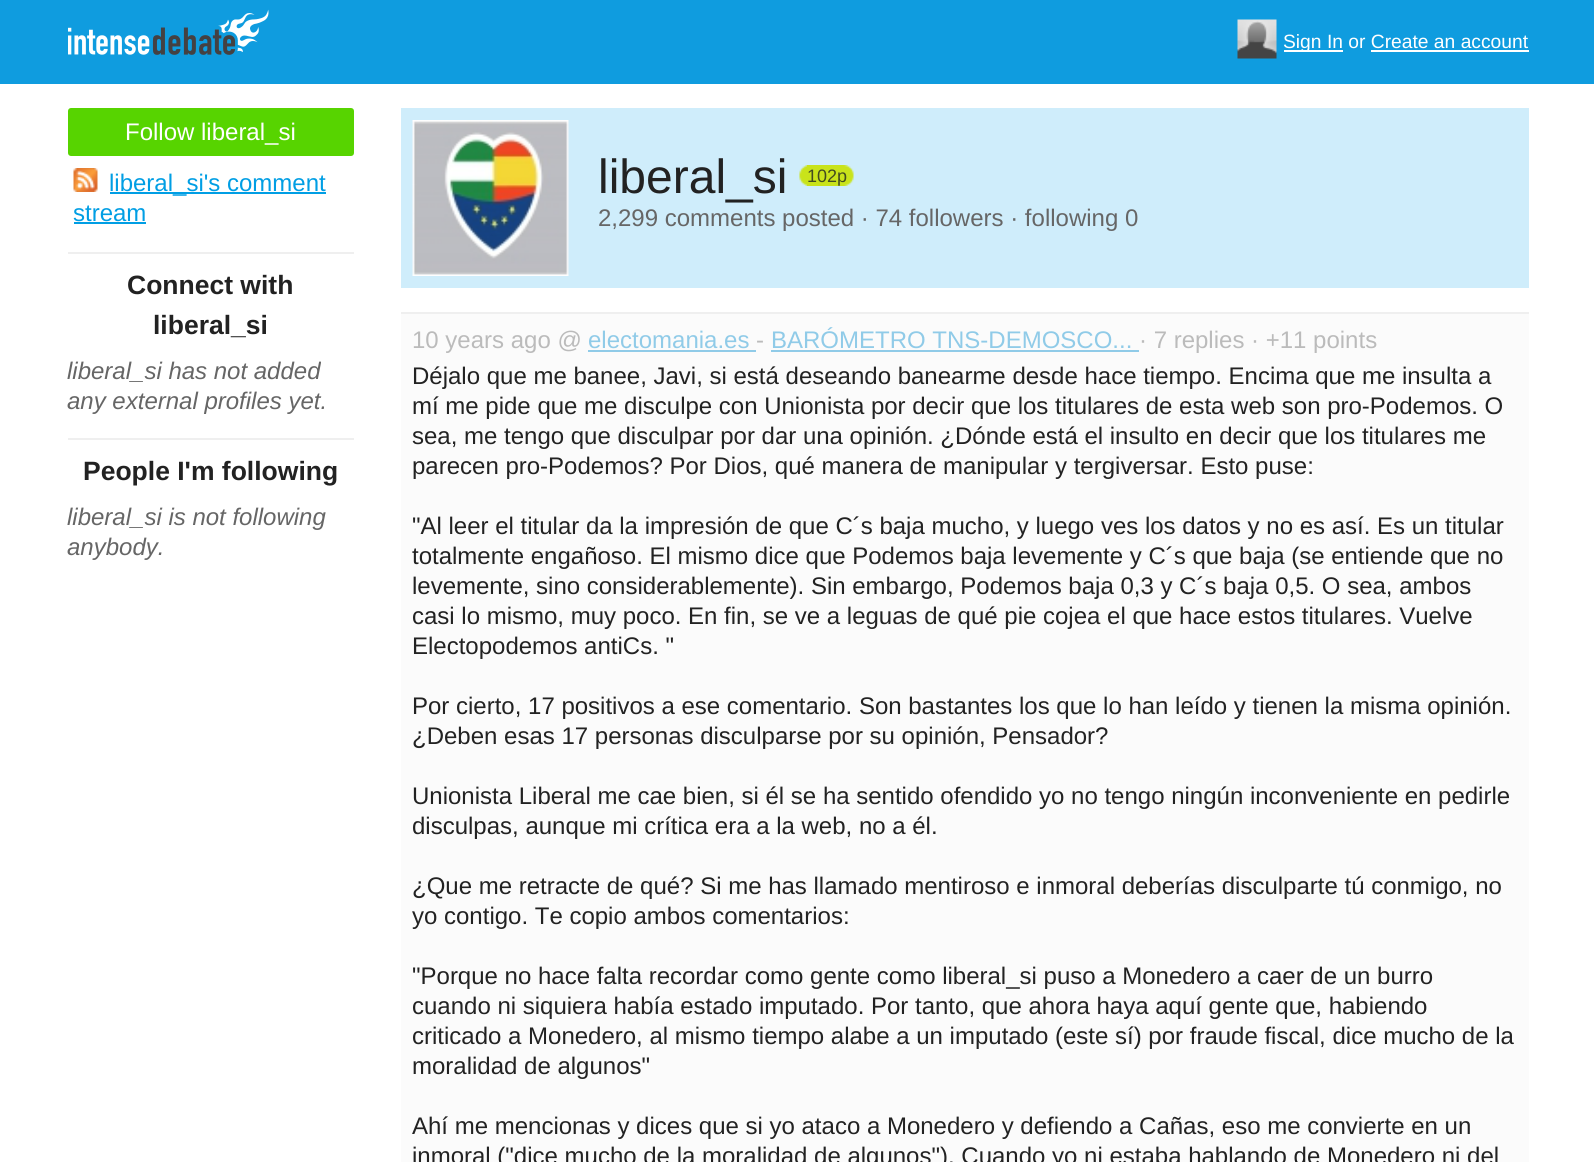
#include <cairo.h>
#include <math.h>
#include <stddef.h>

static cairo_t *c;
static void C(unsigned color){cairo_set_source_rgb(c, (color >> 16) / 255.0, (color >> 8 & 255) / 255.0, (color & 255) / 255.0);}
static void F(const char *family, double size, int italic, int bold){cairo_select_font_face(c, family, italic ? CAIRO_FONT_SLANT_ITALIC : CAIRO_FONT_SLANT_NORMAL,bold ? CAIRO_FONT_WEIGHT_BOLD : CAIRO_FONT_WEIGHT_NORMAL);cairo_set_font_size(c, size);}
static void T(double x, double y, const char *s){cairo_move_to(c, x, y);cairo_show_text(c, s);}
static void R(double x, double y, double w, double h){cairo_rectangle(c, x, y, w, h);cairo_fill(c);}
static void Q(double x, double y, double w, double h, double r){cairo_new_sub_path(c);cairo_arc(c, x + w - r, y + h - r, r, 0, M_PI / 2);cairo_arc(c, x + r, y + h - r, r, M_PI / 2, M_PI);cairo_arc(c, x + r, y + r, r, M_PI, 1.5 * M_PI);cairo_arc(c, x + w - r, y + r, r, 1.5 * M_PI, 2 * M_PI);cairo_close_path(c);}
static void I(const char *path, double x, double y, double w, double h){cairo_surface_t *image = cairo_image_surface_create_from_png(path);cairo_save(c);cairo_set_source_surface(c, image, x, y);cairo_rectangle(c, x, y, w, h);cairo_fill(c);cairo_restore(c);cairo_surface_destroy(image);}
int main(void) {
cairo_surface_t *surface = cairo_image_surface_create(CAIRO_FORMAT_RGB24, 1594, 1162);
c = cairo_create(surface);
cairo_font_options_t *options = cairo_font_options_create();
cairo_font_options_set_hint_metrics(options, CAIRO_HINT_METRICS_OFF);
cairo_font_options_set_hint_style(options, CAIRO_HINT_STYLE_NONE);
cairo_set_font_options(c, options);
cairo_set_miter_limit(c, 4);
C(0xffffff);
cairo_paint(c);
C(0x0f9cdf);
R(0,0,1594,84);
I("1.png",68,9,201,46);
I("2.png",1237,19,40,40);
C(0xffffff);
R(1284,50,59,2);
F("Liberation Sans",19.25,0,0);
T(1283,48,"Sign In or Create an account");
R(1371,50,158,2);
C(0x57d400);
Q(68,108,286,48,3);
cairo_fill(c);
F("Liberation Sans",24,0,0);
C(0xffffff);
T(125,140,"Follow liberal_si");
I("3.png",73,168,25,24);
C(0x009ee4);
R(110,192,216,2);
T(109,191,"liberal_si's comment");
T(73,221,"stream");
R(74,222,72,2);
C(0xefefef);
R(68,252,286,2);
F("Liberation Sans",26.5,0,1);
C(0x222222);
T(127,294,"Connect with");
T(153,334,"liberal_si");
F("Liberation Sans",24,1,0);
C(0x666666);
T(67,379,"liberal_si has not added");
T(67,409,"any external profiles yet.");
C(0xefefef);
R(68,438,286,2);
F("Liberation Sans",26.5,0,1);
C(0x222222);
T(83,480,"People I'm following");
F("Liberation Sans",24,1,0);
C(0x666666);
T(67,525,"liberal_si is not following");
T(67,555,"anybody.");
C(0xcfedfb);
R(401,108,1128,180);
I("4.png",412,120,157,156);
F("Liberation Sans",48,0,0);
C(0x222222);
T(598,193,"liberal_si");
I("5.png",799,165,8,21);
I("6.png",807,165,47,21);
F("Liberation Sans",18,0,0);
C(0x424b20);
T(807,182,"102p");
F("Liberation Sans",24,0,0);
C(0x666666);
T(598,226,"2,299 comments posted · 74 followers · following 0");
C(0xfbfbfb);
R(401,314,1128,848);
C(0xefefef);
R(401,312,1128,2);
C(0xbbbbbb);
T(412,348,"10 years ago @");
C(0x90cbe8);
T(588,348,"electomania.es");
R(588,350,168,2);
C(0xbbbbbb);
T(756,348,"-");
C(0x90cbe8);
T(771,348,"BARÓMETRO TNS-DEMOSCO...");
R(771,350,368,2);
C(0xbbbbbb);
T(1139,348,"· 7 replies · +11 points");
C(0x222222);
T(412,384,"Déjalo que me banee, Javi, si está deseando banearme desde hace tiempo. Encima que me insulta a");
T(412,414,"mí me pide que me disculpe con Unionista por decir que los titulares de esta web son pro-Podemos. O");
T(412,444,"sea, me tengo que disculpar por dar una opinión. ¿Dónde está el insulto en decir que los titulares me");
T(412,474,"parecen pro-Podemos? Por Dios, qué manera de manipular y tergiversar. Esto puse:");
T(412,534,"\"Al leer el titular da la impresión de que C´s baja mucho, y luego ves los datos y no es así. Es un titular");
T(412,564,"totalmente engañoso. El mismo dice que Podemos baja levemente y C´s que baja (se entiende que no");
T(412,594,"levemente, sino considerablemente). Sin embargo, Podemos baja 0,3 y C´s baja 0,5. O sea, ambos");
T(412,624,"casi lo mismo, muy poco. En fin, se ve a leguas de qué pie cojea el que hace estos titulares. Vuelve");
T(412,654,"Electopodemos antiCs. \"");
T(412,714,"Por cierto, 17 positivos a ese comentario. Son bastantes los que lo han leído y tienen la misma opinión.");
T(412,744,"¿Deben esas 17 personas disculparse por su opinión, Pensador?");
T(412,804,"Unionista Liberal me cae bien, si él se ha sentido ofendido yo no tengo ningún inconveniente en pedirle");
T(412,834,"disculpas, aunque mi crítica era a la web, no a él.");
T(412,894,"¿Que me retracte de qué? Si me has llamado mentiroso e inmoral deberías disculparte tú conmigo, no");
T(412,924,"yo contigo. Te copio ambos comentarios:");
T(412,984,"\"Porque no hace falta recordar como gente como liberal_si puso a Monedero a caer de un burro");
T(412,1014,"cuando ni siquiera había estado imputado. Por tanto, que ahora haya aquí gente que, habiendo");
T(412,1044,"criticado a Monedero, al mismo tiempo alabe a un imputado (este sí) por fraude fiscal, dice mucho de la");
T(412,1074,"moralidad de algunos\"");
T(412,1134,"Ahí me mencionas y dices que si yo ataco a Monedero y defiendo a Cañas, eso me convierte en un");
T(412,1164,"inmoral (\"dice mucho de la moralidad de algunos\"). Cuando yo ni estaba hablando de Monedero ni del");
cairo_surface_write_to_png(surface, "o.png");
cairo_font_options_destroy(options);
cairo_destroy(c);
cairo_surface_destroy(surface);
return 0;
}
